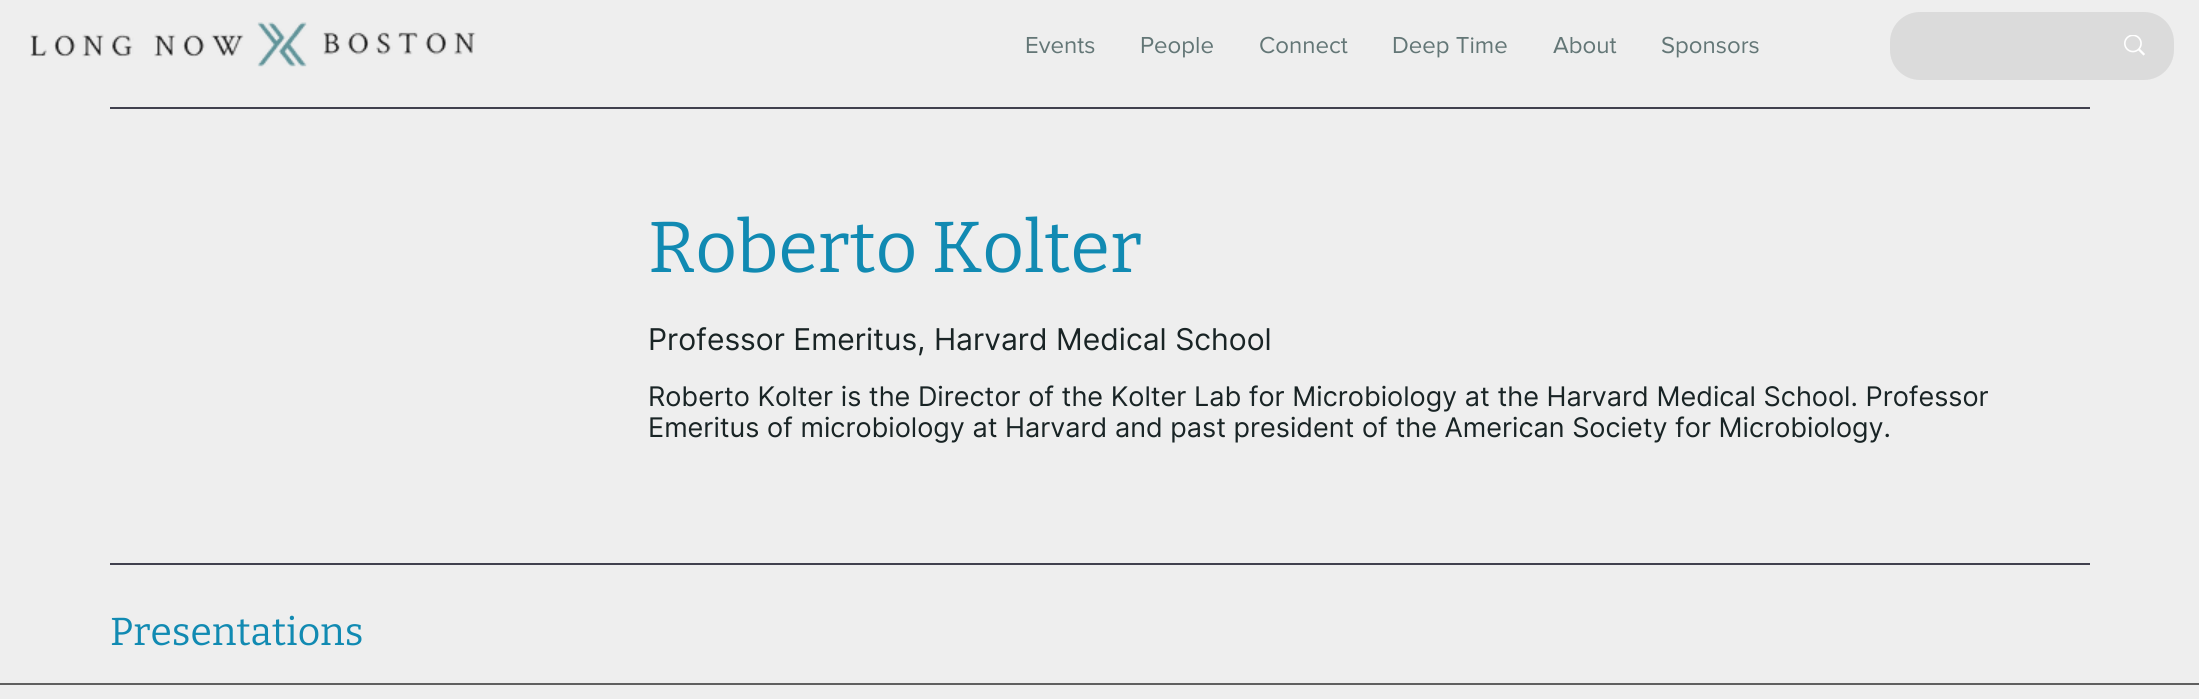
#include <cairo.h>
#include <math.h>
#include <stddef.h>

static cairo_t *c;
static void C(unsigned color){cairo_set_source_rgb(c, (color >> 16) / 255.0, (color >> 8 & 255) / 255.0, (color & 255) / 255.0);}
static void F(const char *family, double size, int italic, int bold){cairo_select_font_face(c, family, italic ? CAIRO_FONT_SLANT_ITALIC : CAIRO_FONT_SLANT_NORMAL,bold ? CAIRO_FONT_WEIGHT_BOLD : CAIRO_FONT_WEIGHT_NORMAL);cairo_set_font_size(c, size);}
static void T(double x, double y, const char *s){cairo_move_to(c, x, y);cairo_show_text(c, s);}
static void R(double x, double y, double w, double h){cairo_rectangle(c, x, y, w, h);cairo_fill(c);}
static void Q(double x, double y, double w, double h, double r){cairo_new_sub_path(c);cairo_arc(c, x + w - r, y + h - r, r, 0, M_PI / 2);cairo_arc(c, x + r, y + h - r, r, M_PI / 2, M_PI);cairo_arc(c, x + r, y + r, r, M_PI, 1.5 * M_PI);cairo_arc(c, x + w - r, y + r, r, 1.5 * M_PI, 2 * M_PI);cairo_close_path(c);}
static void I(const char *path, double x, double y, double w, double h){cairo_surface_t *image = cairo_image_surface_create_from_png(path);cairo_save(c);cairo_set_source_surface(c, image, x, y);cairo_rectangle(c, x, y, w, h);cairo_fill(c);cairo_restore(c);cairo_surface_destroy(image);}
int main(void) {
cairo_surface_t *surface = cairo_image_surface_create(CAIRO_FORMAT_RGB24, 2199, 699);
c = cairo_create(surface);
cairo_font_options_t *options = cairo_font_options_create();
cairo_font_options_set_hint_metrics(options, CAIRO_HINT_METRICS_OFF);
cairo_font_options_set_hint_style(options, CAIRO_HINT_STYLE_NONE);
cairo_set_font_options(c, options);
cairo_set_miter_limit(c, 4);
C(0xeeeeee);
cairo_paint(c);
I("1.png",30,22,446,45);
F("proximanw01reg",24,0,0);
C(0x637676);
T(1025,53,"Events");
T(1140,53,"People");
T(1259,53,"Connect");
T(1392,53,"Deep Time");
T(1553,53,"About");
T(1661,53,"Sponsors");
C(0xdbdbdb);
Q(1890,12,284,68,30);
cairo_fill(c);
I("2.png",2124,35,21,21);
C(0x40404e);
R(110,107,1980,2);
F("Bitter",72,0,0);
C(0x118ab2);
T(648,272,"Roberto Kolter");
F("Inter",30,0,0);
C(0x192425);
T(648,350,"Professor Emeritus, Harvard Medical School");
F("Inter",27,0,0);
T(648,406,"Roberto Kolter is the Director of the Kolter Lab for Microbiology at the Harvard Medical School. Professor");
T(648,437,"Emeritus of microbiology at Harvard and past president of the American Society for Microbiology.");
C(0x40404e);
R(110,563,1980,2);
F("Bitter",39,0,0);
C(0x118ab2);
T(110,645,"Presentations");
C(0x5f5f5f);
R(0,683,2199,2);
cairo_surface_write_to_png(surface, "o.png");
cairo_font_options_destroy(options);
cairo_destroy(c);
cairo_surface_destroy(surface);
return 0;
}
